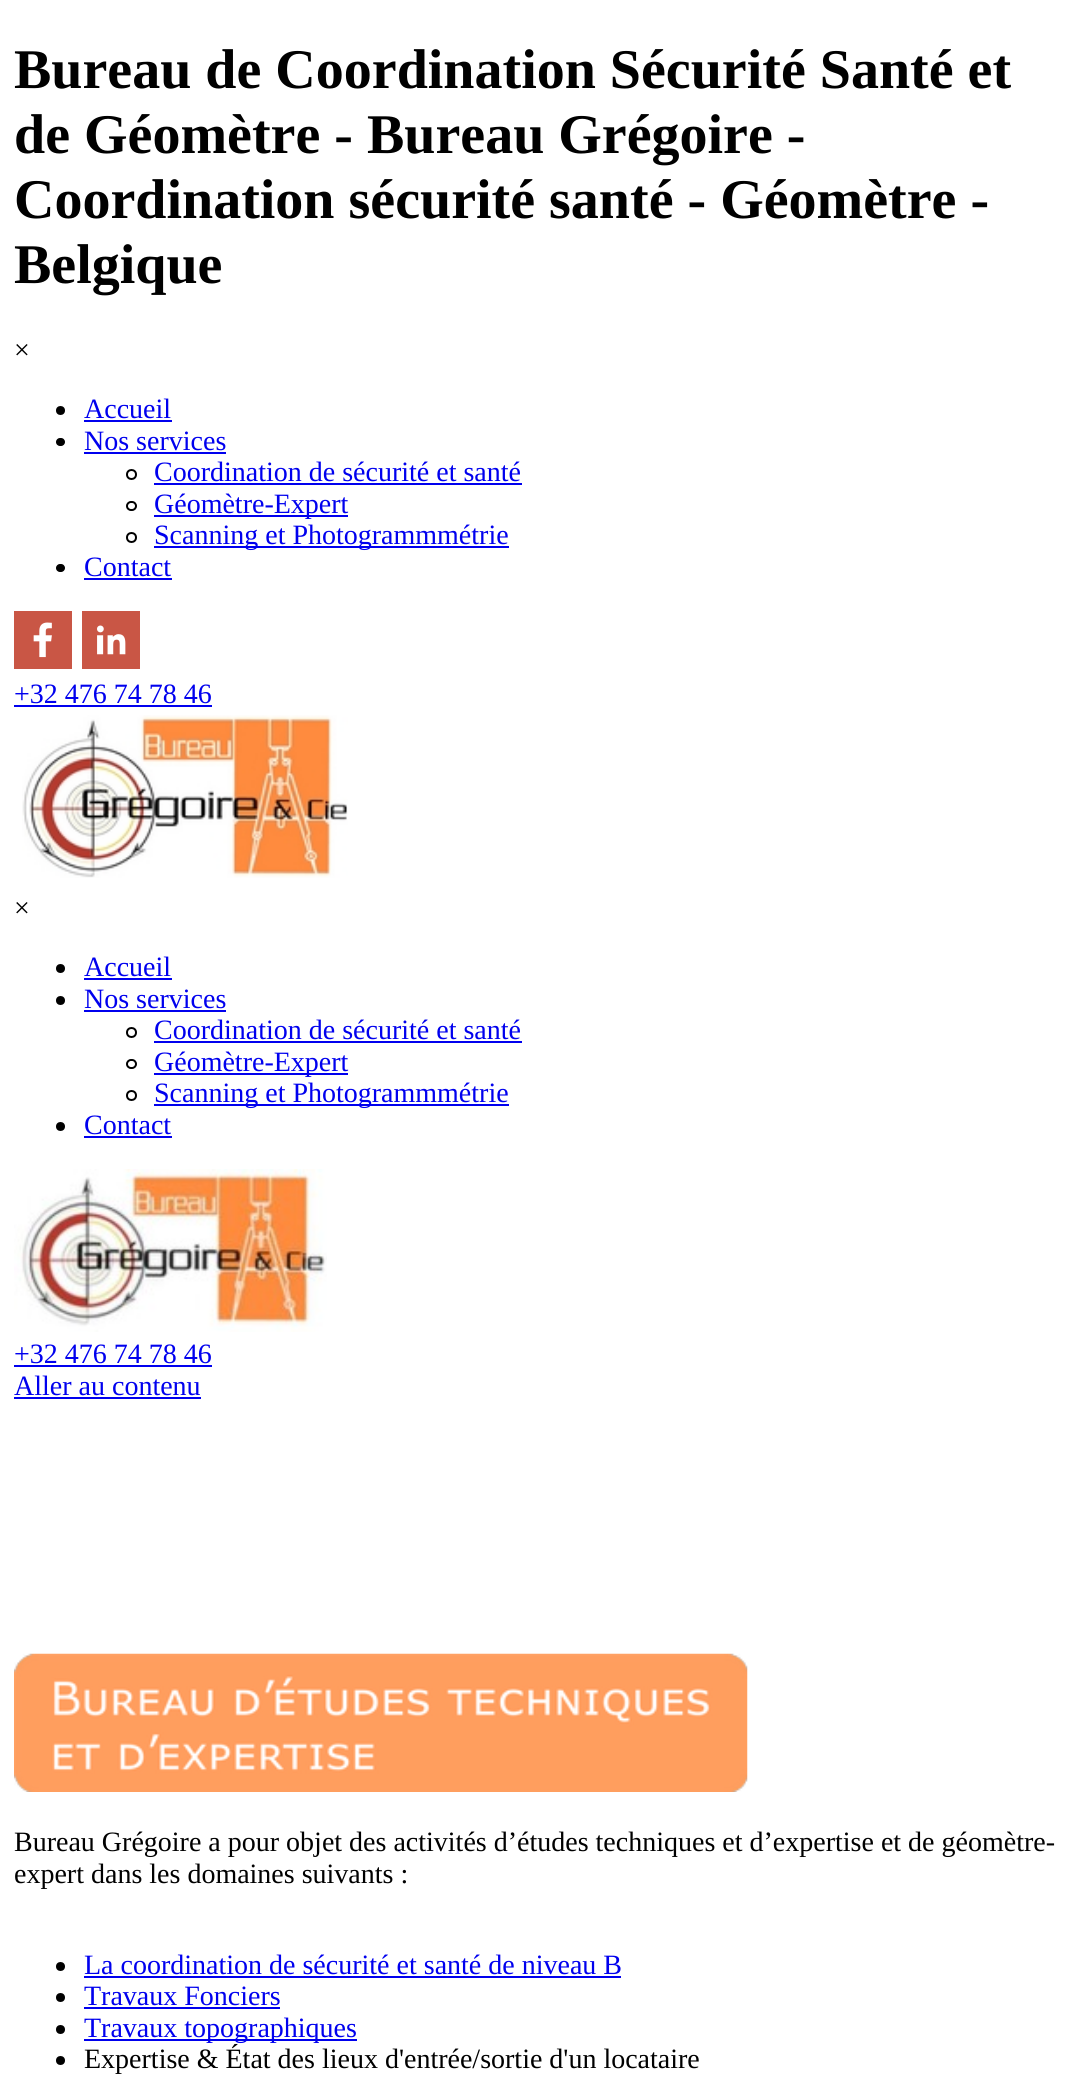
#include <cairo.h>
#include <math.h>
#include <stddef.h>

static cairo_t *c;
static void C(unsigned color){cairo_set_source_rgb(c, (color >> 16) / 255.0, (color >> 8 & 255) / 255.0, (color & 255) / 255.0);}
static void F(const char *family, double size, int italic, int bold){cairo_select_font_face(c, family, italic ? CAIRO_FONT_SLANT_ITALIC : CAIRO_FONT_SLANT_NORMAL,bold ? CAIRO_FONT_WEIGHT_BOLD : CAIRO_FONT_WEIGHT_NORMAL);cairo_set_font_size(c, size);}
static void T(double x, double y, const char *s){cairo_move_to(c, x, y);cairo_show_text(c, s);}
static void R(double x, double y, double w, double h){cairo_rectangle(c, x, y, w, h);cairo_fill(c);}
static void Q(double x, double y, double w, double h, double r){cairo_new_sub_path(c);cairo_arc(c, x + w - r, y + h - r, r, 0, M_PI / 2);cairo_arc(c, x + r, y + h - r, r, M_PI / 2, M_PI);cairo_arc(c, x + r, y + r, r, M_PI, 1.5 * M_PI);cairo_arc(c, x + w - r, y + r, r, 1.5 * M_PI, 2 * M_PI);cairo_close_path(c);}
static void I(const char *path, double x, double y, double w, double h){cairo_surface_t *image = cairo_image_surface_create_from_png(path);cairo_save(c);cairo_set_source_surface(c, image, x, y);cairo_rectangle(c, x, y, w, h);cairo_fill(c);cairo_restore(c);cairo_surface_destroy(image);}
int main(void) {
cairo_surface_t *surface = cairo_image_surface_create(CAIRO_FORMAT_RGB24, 1076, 2074);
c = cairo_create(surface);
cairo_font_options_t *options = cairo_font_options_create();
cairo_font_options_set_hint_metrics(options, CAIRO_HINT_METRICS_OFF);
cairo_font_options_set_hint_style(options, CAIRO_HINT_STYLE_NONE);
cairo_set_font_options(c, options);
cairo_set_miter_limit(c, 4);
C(0xffffff);
cairo_paint(c);
F("Liberation Serif",56,0,1);
C(0x000000);
T(14,88,"Bureau de Coordination Sécurité Santé et");
T(14,153,"de Géomètre - Bureau Grégoire -");
T(14,218,"Coordination sécurité santé - Géomètre -");
T(14,283,"Belgique");
F("Liberation Serif",28,0,0);
T(14,359,"×");
cairo_new_path(c);
cairo_arc(c,60.5,410.5,4.5,0,2 * M_PI);
cairo_fill(c);
C(0x0000ee);
T(84,418,"Accueil");
R(84,420,88,2);
C(0x000000);
Q(56,438,9,8,4);
cairo_fill(c);
C(0x0000ee);
T(84,450,"Nos services");
R(84,452,142,2);
cairo_new_path(c);
cairo_arc(c,131.5,474.5,4.5,0,2 * M_PI);
C(0x000000);
cairo_stroke(c);
C(0x0000ee);
T(154,481,"Coordination de sécurité et santé");
R(154,483,368,2);
Q(127,502,9,8,4);
C(0x000000);
cairo_stroke(c);
C(0x0000ee);
R(154,515,194,2);
T(154,513,"Géomètre-Expert");
cairo_new_path(c);
cairo_arc(c,131.5,537.5,4.5,0,2 * M_PI);
C(0x000000);
cairo_stroke(c);
C(0x0000ee);
R(154,546,355,2);
T(154,544,"Scanning et Photogrammmétrie");
C(0x000000);
Q(56,564,9,8,4);
cairo_fill(c);
C(0x0000ee);
T(84,576,"Contact");
R(84,578,88,2);
C(0xc95645);
R(14,611,58,58);
I("1.png",33,622,19,36);
R(82,611,58,58);
I("2.png",97,625,29,30);
C(0x0000ee);
T(14,703,"+32 476 74 78 46");
R(14,705,198,2);
I("3.png",22,715,326,163);
C(0x000000);
T(14,917,"×");
cairo_new_path(c);
cairo_arc(c,60.5,968.5,4.5,0,2 * M_PI);
cairo_fill(c);
C(0x0000ee);
T(84,976,"Accueil");
R(84,978,88,2);
C(0x000000);
cairo_new_path(c);
cairo_arc(c,60.5,1000.5,4.5,0,2 * M_PI);
cairo_fill(c);
C(0x0000ee);
T(84,1008,"Nos services");
R(84,1010,142,2);
cairo_new_path(c);
cairo_arc(c,131.5,1032.5,4.5,0,2 * M_PI);
C(0x000000);
cairo_stroke(c);
C(0x0000ee);
T(154,1039,"Coordination de sécurité et santé");
R(154,1041,368,2);
Q(127,1060,9,8,4);
C(0x000000);
cairo_stroke(c);
C(0x0000ee);
R(154,1073,194,2);
T(154,1071,"Géomètre-Expert");
cairo_new_path(c);
cairo_arc(c,131.5,1095.5,4.5,0,2 * M_PI);
C(0x000000);
cairo_stroke(c);
C(0x0000ee);
R(154,1104,355,2);
T(154,1102,"Scanning et Photogrammmétrie");
C(0x000000);
cairo_new_path(c);
cairo_arc(c,60.5,1126.5,4.5,0,2 * M_PI);
cairo_fill(c);
C(0x0000ee);
T(84,1134,"Contact");
R(84,1136,88,2);
I("4.png",14,1169,313,163);
T(14,1363,"+32 476 74 78 46");
R(14,1365,198,2);
T(14,1395,"Aller au contenu");
R(14,1397,187,2);
I("5.png",14,1653,734,139);
C(0x000000);
T(14,1851,"Bureau Grégoire a pour objet des activités d’études techniques et d’expertise et de géomètre-");
T(14,1883,"expert dans les domaines suivants :");
cairo_new_path(c);
cairo_arc(c,60.5,1966.5,4.5,0,2 * M_PI);
cairo_fill(c);
C(0x0000ee);
T(84,1974,"La coordination de sécurité et santé de niveau B");
R(84,1976,537,2);
C(0x000000);
cairo_new_path(c);
cairo_arc(c,60.5,1997.5,4.5,0,2 * M_PI);
cairo_fill(c);
C(0x0000ee);
T(84,2005,"Travaux Fonciers");
R(84,2007,196,2);
C(0x000000);
cairo_new_path(c);
cairo_arc(c,60.5,2029.5,4.5,0,2 * M_PI);
cairo_fill(c);
C(0x0000ee);
R(84,2039,273,2);
T(84,2037,"Travaux topographiques");
C(0x000000);
cairo_new_path(c);
cairo_arc(c,60.5,2060.5,4.5,0,2 * M_PI);
cairo_fill(c);
T(84,2068,"Expertise & État des lieux d'entrée/sortie d'un locataire");
cairo_surface_write_to_png(surface, "o.png");
cairo_font_options_destroy(options);
cairo_destroy(c);
cairo_surface_destroy(surface);
return 0;
}
